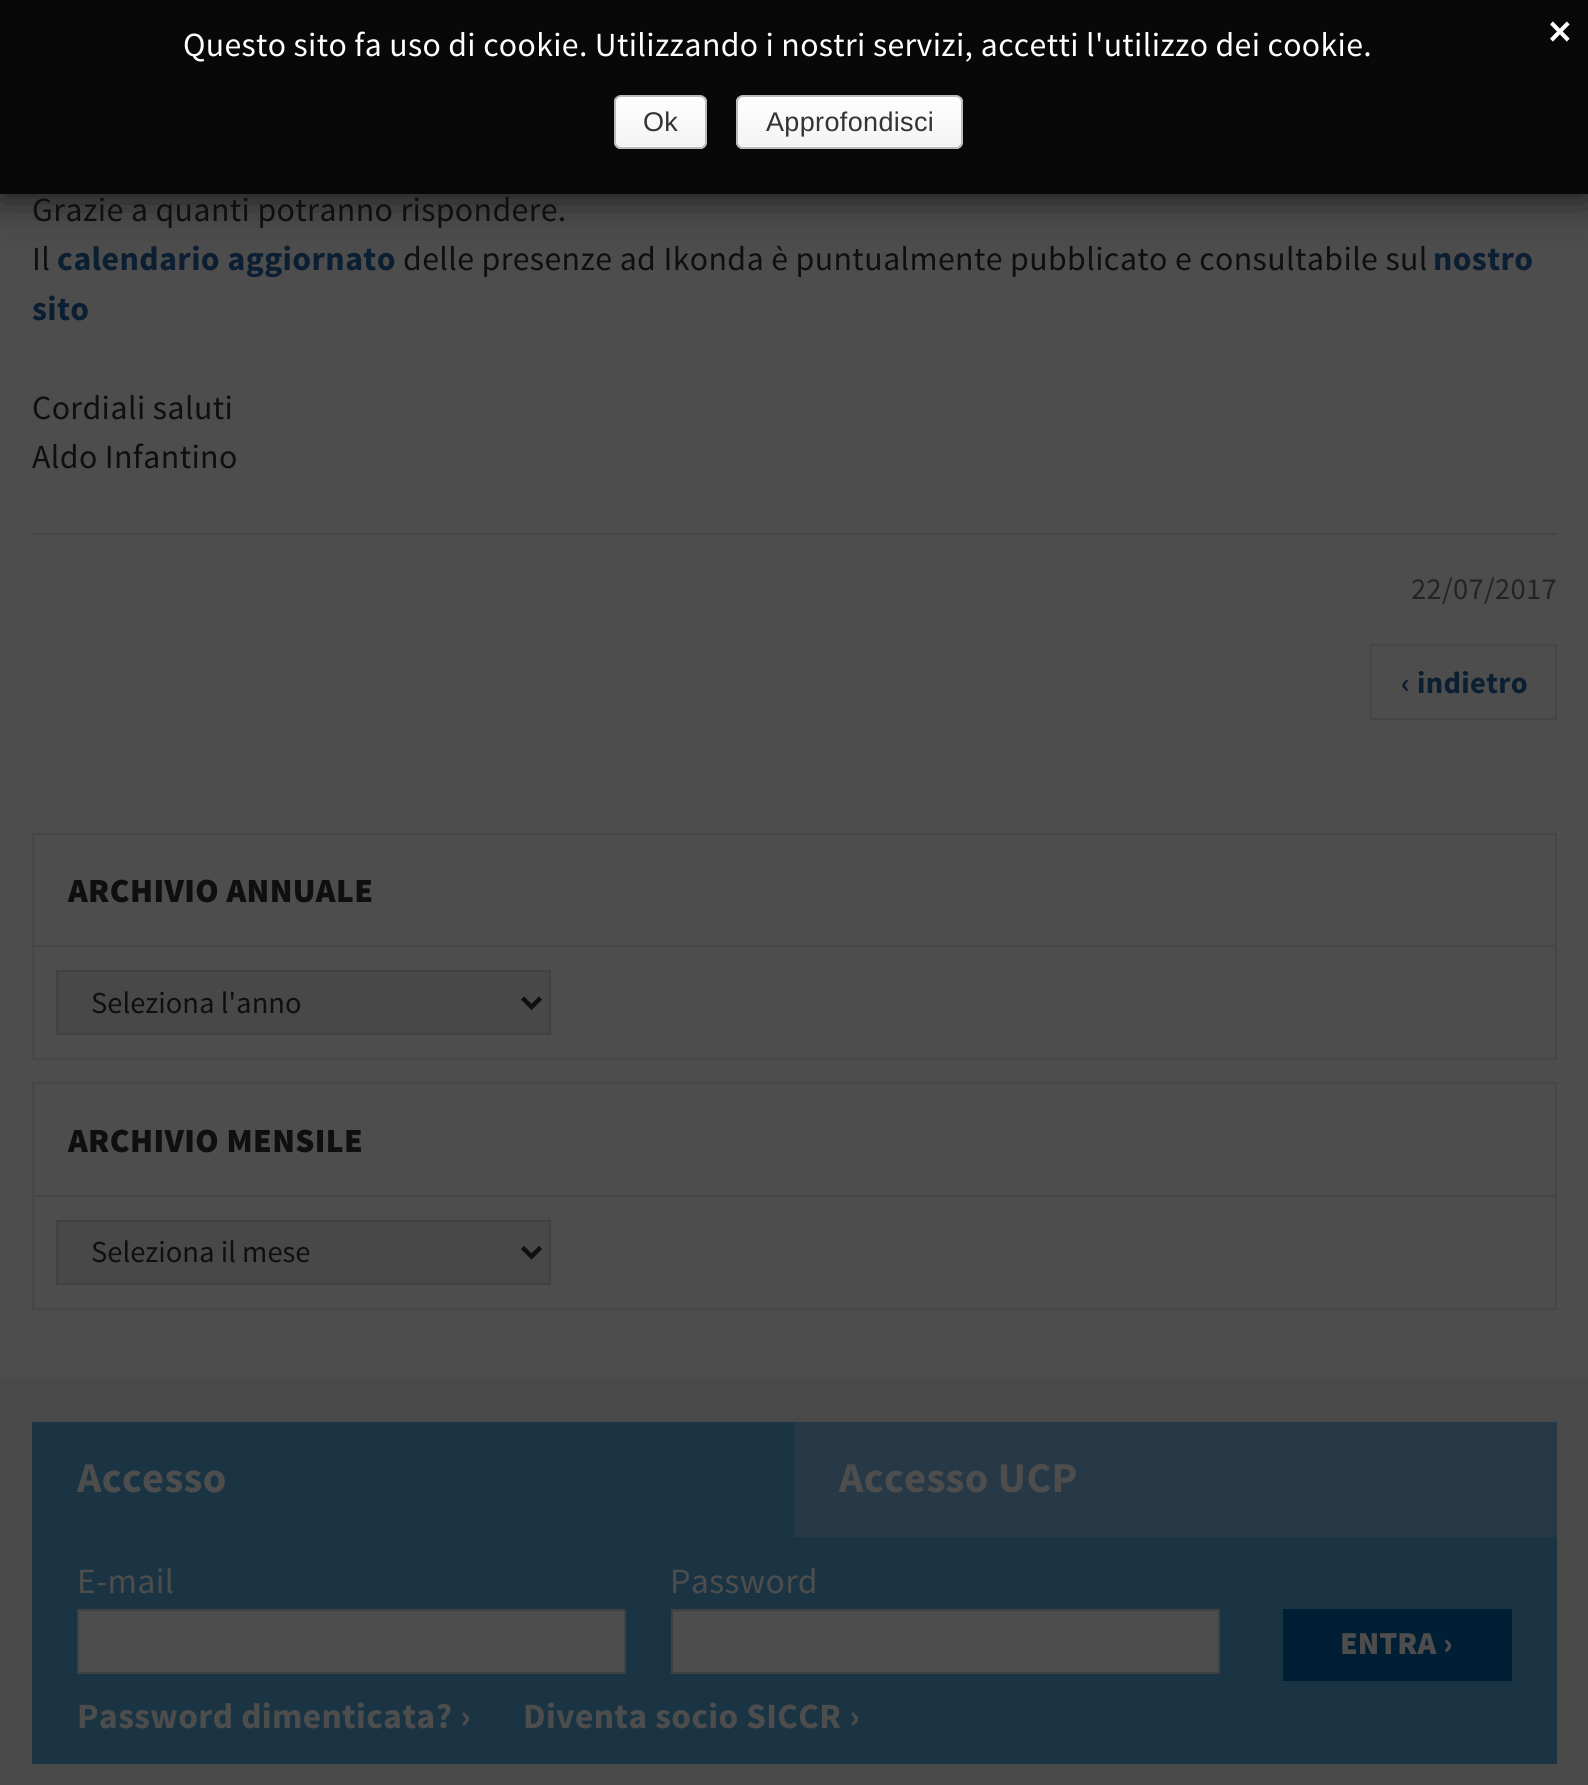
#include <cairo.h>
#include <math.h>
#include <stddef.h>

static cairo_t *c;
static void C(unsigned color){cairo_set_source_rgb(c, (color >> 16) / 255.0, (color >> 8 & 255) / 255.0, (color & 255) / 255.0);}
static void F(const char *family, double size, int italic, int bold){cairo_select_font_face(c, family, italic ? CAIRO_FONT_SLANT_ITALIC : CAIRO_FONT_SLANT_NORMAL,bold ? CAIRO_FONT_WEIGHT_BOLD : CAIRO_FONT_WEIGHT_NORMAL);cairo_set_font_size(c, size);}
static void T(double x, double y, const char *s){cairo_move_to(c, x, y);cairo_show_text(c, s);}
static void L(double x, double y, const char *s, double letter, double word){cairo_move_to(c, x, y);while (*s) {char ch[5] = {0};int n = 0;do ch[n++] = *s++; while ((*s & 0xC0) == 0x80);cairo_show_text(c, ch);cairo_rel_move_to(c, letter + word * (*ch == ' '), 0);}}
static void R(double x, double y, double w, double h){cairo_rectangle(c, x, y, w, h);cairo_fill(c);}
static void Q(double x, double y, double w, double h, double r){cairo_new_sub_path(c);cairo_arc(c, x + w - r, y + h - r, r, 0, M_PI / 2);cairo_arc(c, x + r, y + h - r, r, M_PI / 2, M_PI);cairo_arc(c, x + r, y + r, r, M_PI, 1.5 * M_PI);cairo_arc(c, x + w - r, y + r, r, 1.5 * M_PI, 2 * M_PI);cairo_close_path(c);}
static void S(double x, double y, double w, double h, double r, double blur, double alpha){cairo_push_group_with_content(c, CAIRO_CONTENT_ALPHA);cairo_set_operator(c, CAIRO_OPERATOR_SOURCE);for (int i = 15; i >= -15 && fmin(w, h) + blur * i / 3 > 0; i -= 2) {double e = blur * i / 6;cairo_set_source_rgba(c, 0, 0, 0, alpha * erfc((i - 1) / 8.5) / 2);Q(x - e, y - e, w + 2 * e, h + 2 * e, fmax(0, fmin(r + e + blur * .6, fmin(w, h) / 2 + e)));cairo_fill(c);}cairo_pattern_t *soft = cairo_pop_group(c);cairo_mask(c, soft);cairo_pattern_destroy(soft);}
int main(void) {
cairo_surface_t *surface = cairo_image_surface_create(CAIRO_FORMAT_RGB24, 1588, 1785);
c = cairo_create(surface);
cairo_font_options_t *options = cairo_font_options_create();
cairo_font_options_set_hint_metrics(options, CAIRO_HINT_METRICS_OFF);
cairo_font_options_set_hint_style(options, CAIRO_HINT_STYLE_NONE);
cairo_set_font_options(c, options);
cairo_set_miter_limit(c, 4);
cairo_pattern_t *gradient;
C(0x4d4d4d);
cairo_paint(c);
cairo_save(c);
cairo_set_fill_rule(c,CAIRO_FILL_RULE_EVEN_ODD);
cairo_new_path(c);
cairo_move_to(c,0,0);
cairo_line_to(c,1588,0);
cairo_line_to(c,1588,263);
cairo_line_to(c,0,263);
cairo_close_path(c);
cairo_move_to(c,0,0);
cairo_line_to(c,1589,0);
cairo_line_to(c,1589,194);
cairo_line_to(c,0,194);
cairo_close_path(c);
cairo_clip(c);
C(0x111111);
S(0,0,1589,194,0,22.5,1);
cairo_restore(c);
cairo_set_source_rgba(c,0,0,0,0.9);
R(0,0,1588,194);
F("Source Sans Pro",33.75,0,0);
C(0xffffff);
L(183,56,"Questo sito fa uso di cookie. Utilizzando i nostri servizi, accetti l'utilizzo dei cookie.",.35,0);
cairo_save(c);
Q(614,95,93,54,7);
cairo_clip(c);
gradient = cairo_pattern_create_linear(660,97,660,146);
cairo_pattern_add_color_stop_rgba(gradient,0,0.996,0.996,0.996,1);
cairo_pattern_add_color_stop_rgba(gradient,1,0.957,0.957,0.957,1);
cairo_set_source(c,gradient);
cairo_pattern_destroy(gradient);
R(614,97,93,49);
gradient = cairo_pattern_create_linear(660,146,660,196);
cairo_pattern_add_color_stop_rgba(gradient,0,0.996,0.996,0.996,1);
cairo_pattern_add_color_stop_rgba(gradient,1,0.957,0.957,0.957,1);
cairo_set_source(c,gradient);
cairo_pattern_destroy(gradient);
R(614,146,93,3);
cairo_restore(c);
Q(615,96,91,52,6);
C(0xbbbbbb);
cairo_stroke(c);
F("Liberation Sans",27,0,0);
C(0x333333);
L(643,131,"Ok",.35,0);
cairo_save(c);
Q(736,95,227,54,7);
cairo_clip(c);
gradient = cairo_pattern_create_linear(849,97,849,146);
cairo_pattern_add_color_stop_rgba(gradient,0,0.996,0.996,0.996,1);
cairo_pattern_add_color_stop_rgba(gradient,1,0.957,0.957,0.957,1);
cairo_set_source(c,gradient);
cairo_pattern_destroy(gradient);
R(736,97,227,49);
gradient = cairo_pattern_create_linear(849,146,849,196);
cairo_pattern_add_color_stop_rgba(gradient,0,0.996,0.996,0.996,1);
cairo_pattern_add_color_stop_rgba(gradient,1,0.957,0.957,0.957,1);
cairo_set_source(c,gradient);
cairo_pattern_destroy(gradient);
R(736,146,227,3);
cairo_restore(c);
Q(737,96,225,52,6);
C(0xbbbbbb);
cairo_stroke(c);
C(0x333333);
L(766,131,"Approfondisci",.35,0);
F("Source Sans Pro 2",45,0,1);
C(0xffffff);
L(1548,47,"×",.35,0);
F("Source Sans Pro",33.85,0,0);
C(0x0f0f0f);
L(32,221,"Grazie a quanti potranno rispondere.",.35,0);
L(32,270,"Il",.35,0);
F("Source Sans Pro",33.85,0,1);
C(0x0c1f32);
L(57,270,"calendario aggiornato",.35,0);
F("Source Sans Pro",33.85,0,0);
C(0x0f0f0f);
L(403,270,"delle presenze ad Ikonda è puntualmente pubblicato e consultabile sul",.35,0);
F("Source Sans Pro",33.85,0,1);
C(0x0c1f32);
L(1433,270,"nostro",.35,0);
L(32,320,"sito",.35,0);
F("Source Sans Pro",33.85,0,0);
C(0x0f0f0f);
L(32,419,"Cordiali saluti",.35,0);
L(32,468,"Aldo Infantino",.35,0);
C(0x464646);
R(32,533,1525,2);
F("Source Sans Pro",30.5,0,0);
C(0x252424);
L(1411,599,"22/07/2017",.35,0);
cairo_rectangle(c,1371,645,185,74);
C(0x464646);
cairo_stroke(c);
F("Source Sans Pro",30.5,0,1);
C(0x0c1f32);
L(1401,693,"‹ indietro",.35,0);
cairo_rectangle(c,33,834,1523,225);
C(0x464646);
cairo_stroke(c);
R(34,945,1521,2);
F("Source Sans Pro Black",33.85,0,0);
C(0x0f0f0f);
L(68,902,"ARCHIVIO ANNUALE",.35,0);
C(0x484848);
cairo_rectangle(c,57,971,493,63);
cairo_fill_preserve(c);
C(0x424141);
cairo_stroke(c);
cairo_new_path(c);
cairo_move_to(c,522.5,998);
cairo_line_to(c,531.5,1007);
cairo_line_to(c,540.5,998);
C(0x0f0f0f);
cairo_set_line_width(c,4.5);
cairo_stroke(c);
F("Source Sans Pro",30.5,0,0);
T(91,1013,"Seleziona l'anno");
cairo_rectangle(c,33,1083,1523,226);
C(0x464646);
cairo_set_line_width(c,2);
cairo_stroke(c);
R(34,1195,1521,2);
F("Source Sans Pro Black",33.85,0,0);
C(0x0f0f0f);
L(68,1152,"ARCHIVIO MENSILE",.35,0);
C(0x484848);
cairo_rectangle(c,57,1221,493,63);
cairo_fill_preserve(c);
C(0x424141);
cairo_stroke(c);
cairo_new_path(c);
cairo_move_to(c,522.5,1247.5);
cairo_line_to(c,531.5,1256.5);
cairo_line_to(c,540.5,1247.5);
C(0x0f0f0f);
cairo_set_line_width(c,4.5);
cairo_stroke(c);
F("Source Sans Pro",30.5,0,0);
T(91,1262,"Seleziona il mese");
C(0x494949);
R(0,1377,1588,408);
C(0x1b3444);
R(32,1422,762,115);
F("Source Sans Pro",42.5,0,1);
C(0x4d4d4d);
L(77,1492,"Accesso",.35,0);
C(0x273946);
R(794,1422,763,115);
C(0x4d4d4d);
L(839,1492,"Accesso UCP",.35,0);
C(0x1b3444);
R(32,1537,1525,227);
F("Source Sans Pro",35.5,0,0);
C(0x4d4d4d);
L(77,1593,"E-mail",.35,0);
cairo_rectangle(c,78,1610,547,63);
cairo_fill_preserve(c);
C(0x424141);
cairo_set_line_width(c,2);
cairo_stroke(c);
C(0x4d4d4d);
L(670,1593,"Password",.35,0);
cairo_rectangle(c,672,1610,547,63);
cairo_fill_preserve(c);
C(0x424141);
cairo_stroke(c);
C(0x001e34);
R(1283,1609,229,72);
F("Source Sans Pro Black",32,0,0);
C(0x4d4d4d);
T(1340,1654,"ENTRA ›");
F("Source Sans Pro",35.5,0,1);
L(77,1728,"Password dimenticata? ›",.35,0);
L(523,1728,"Diventa socio SICCR ›",.35,0);
cairo_surface_write_to_png(surface, "o.png");
cairo_font_options_destroy(options);
cairo_destroy(c);
cairo_surface_destroy(surface);
return 0;
}
